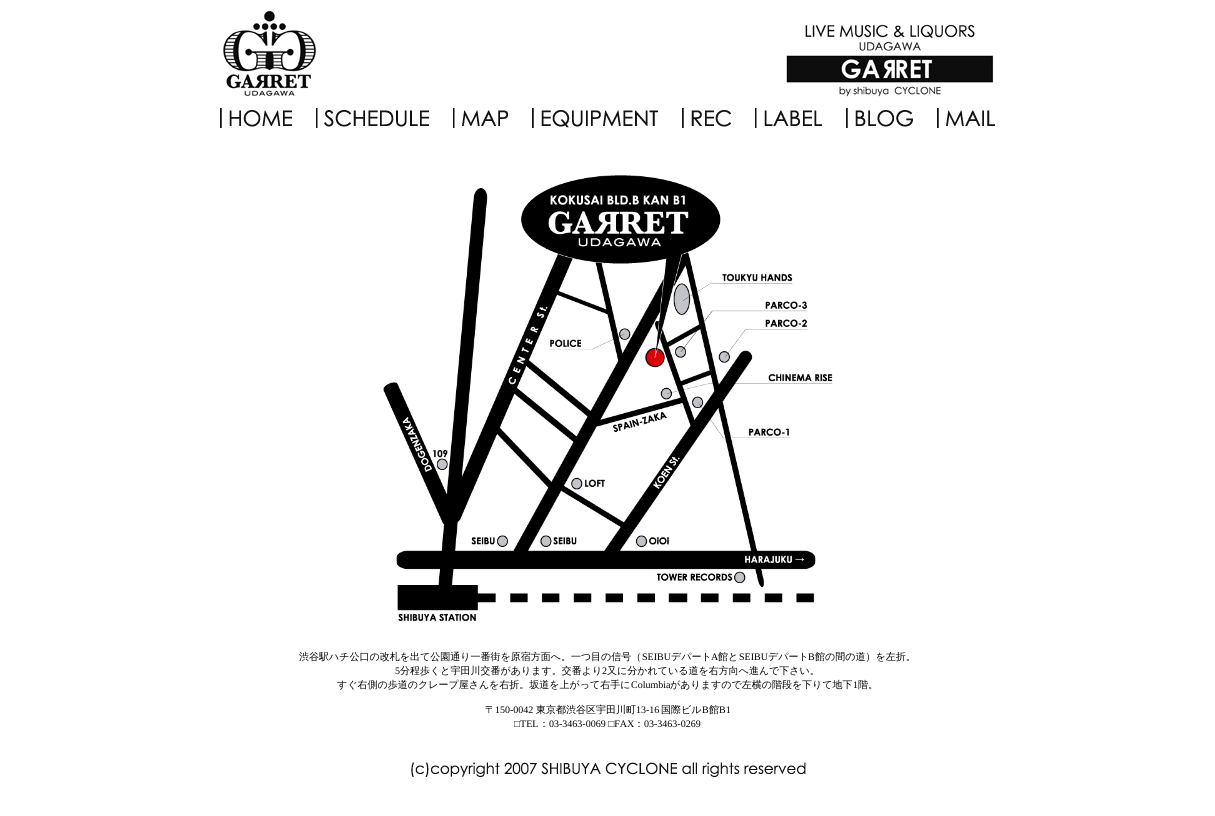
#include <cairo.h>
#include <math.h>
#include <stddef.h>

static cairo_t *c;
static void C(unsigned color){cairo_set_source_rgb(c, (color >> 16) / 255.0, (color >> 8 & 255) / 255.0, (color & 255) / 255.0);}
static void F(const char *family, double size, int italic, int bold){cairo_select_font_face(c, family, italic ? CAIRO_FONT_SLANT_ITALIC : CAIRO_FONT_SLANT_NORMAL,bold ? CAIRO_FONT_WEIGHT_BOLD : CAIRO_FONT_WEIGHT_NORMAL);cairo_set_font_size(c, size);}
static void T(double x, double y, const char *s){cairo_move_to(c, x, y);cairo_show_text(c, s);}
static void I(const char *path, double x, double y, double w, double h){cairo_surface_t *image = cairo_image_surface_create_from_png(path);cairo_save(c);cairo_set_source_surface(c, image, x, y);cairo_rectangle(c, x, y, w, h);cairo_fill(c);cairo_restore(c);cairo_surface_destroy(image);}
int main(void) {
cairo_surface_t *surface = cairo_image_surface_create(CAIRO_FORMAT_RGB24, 1215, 816);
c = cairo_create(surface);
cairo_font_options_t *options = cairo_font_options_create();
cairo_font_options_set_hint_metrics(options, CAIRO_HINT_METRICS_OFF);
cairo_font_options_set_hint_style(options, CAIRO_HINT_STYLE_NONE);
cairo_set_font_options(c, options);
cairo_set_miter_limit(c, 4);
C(0xffffff);
cairo_paint(c);
I("1.png",223,10,771,87);
I("2.png",220,108,72,20);
I("3.png",316,108,113,20);
I("4.png",453,108,55,20);
I("5.png",532,108,126,20);
I("6.png",682,108,49,20);
I("7.png",755,108,67,20);
I("8.png",846,108,67,20);
I("9.png",937,108,58,20);
I("10.png",383,175,450,447);
F("WenQuanYi Zen Hei Medium",10,0,0);
C(0x000000);
T(299,660,"渋谷駅ハチ公口の改札を出て公園通り一番街を原宿方面へ。一つ目の信号（");
F("Liberation Serif",10,0,0);
T(642,660,"SEIBU");
F("WenQuanYi Zen Hei Medium",10,0,0);
T(671,660,"デパート");
F("Liberation Serif",10,0,0);
T(711,660,"A");
F("WenQuanYi Zen Hei Medium",10,0,0);
T(718,660,"館と");
F("Liberation Serif",10,0,0);
T(739,660,"SEIBU");
F("WenQuanYi Zen Hei Medium",10,0,0);
T(768,660,"デパート");
F("Liberation Serif",10,0,0);
T(808,660,"B");
F("WenQuanYi Zen Hei Medium",10,0,0);
T(815,660,"館の間の道）を左折。");
F("Liberation Serif",10,0,0);
T(395,674,"5");
F("WenQuanYi Zen Hei Medium",10,0,0);
T(400,674,"分程歩くと宇田川交番があります。交番より");
F("Liberation Serif",10,0,0);
T(602,674,"2");
F("WenQuanYi Zen Hei Medium",10,0,0);
T(607,674,"又に分かれている道を右方向へ進んで下さい。");
T(337,688,"すぐ右側の歩道のクレープ屋さんを右折。坂道を上がって右手に");
F("Liberation Serif",10,0,0);
T(631,688,"Columbia");
F("WenQuanYi Zen Hei Medium",10,0,0);
T(670,688,"がありますので左横の階段を下りて地下");
F("Liberation Serif",10,0,0);
T(853,688,"1");
F("WenQuanYi Zen Hei Medium",10,0,0);
T(858,688,"階。");
T(485,713,"〒");
F("Liberation Serif",10,0,0);
T(495,713,"150-0042");
F("WenQuanYi Zen Hei Medium",10,0,0);
T(536,713,"東京都渋谷区宇田川町");
F("Liberation Serif",10,0,0);
T(636,713,"13-16");
F("WenQuanYi Zen Hei Medium",10,0,0);
T(661,713,"国際ビル");
F("Liberation Serif",10,0,0);
T(702,713,"B");
F("WenQuanYi Zen Hei Medium",10,0,0);
T(709,713,"館");
F("Liberation Serif",10,0,0);
T(719,713,"B1");
T(514,727,"□TEL");
F("WenQuanYi Zen Hei Medium",10,0,0);
T(539,727,"：");
F("Liberation Serif",10,0,0);
T(549,727,"03-3463-0069 □FAX");
F("WenQuanYi Zen Hei Medium",10,0,0);
T(634,727,"：");
F("Liberation Serif",10,0,0);
T(644,727,"03-3463-0269");
I("11.png",411,762,395,15);
cairo_surface_write_to_png(surface, "o.png");
cairo_font_options_destroy(options);
cairo_destroy(c);
cairo_surface_destroy(surface);
return 0;
}
